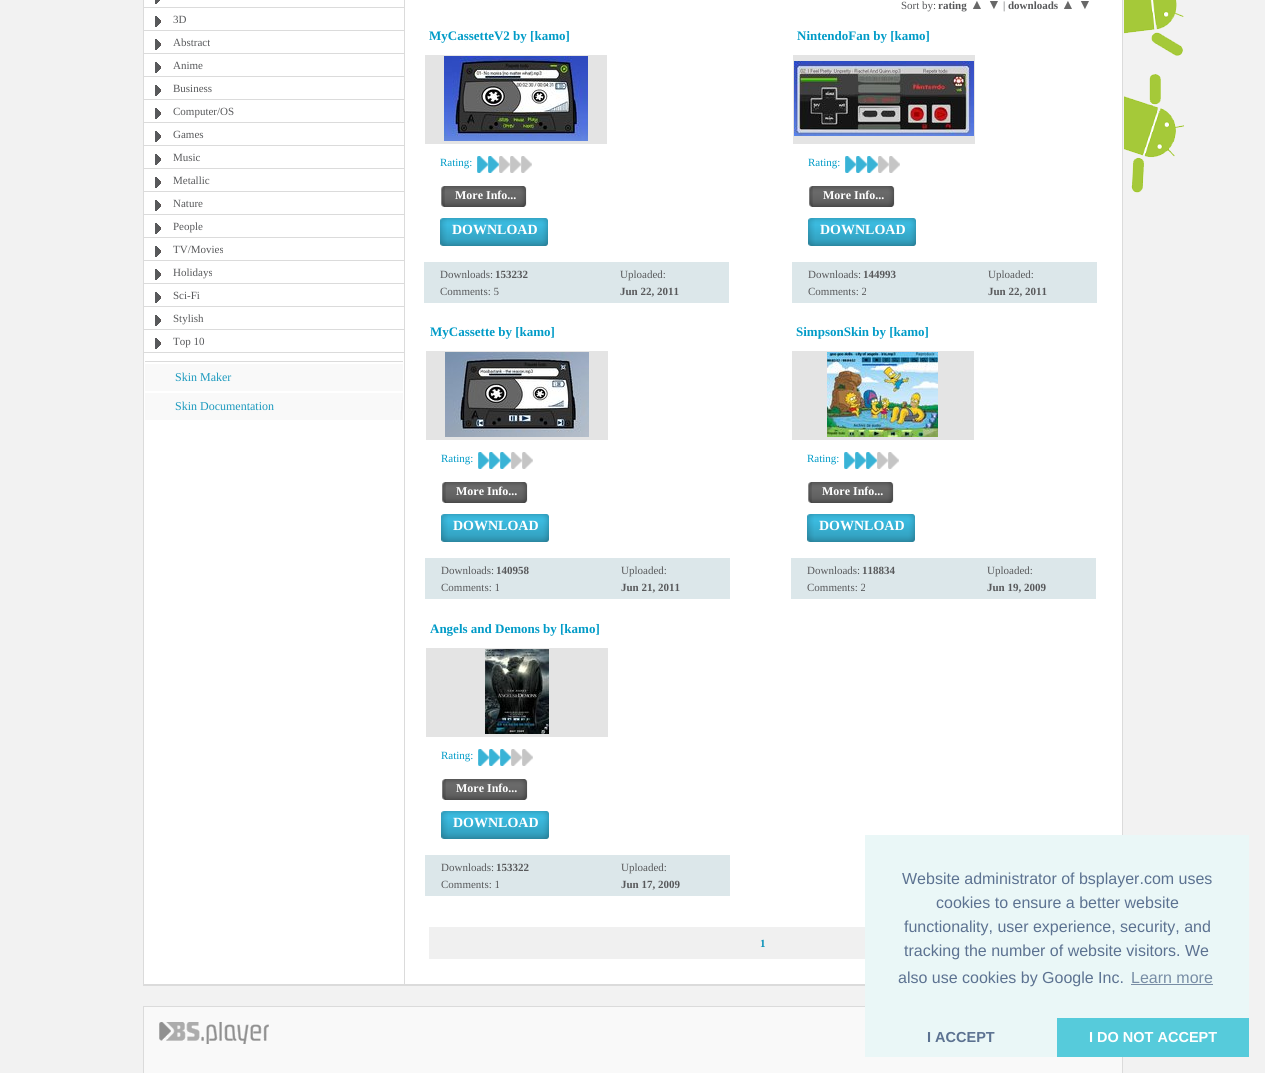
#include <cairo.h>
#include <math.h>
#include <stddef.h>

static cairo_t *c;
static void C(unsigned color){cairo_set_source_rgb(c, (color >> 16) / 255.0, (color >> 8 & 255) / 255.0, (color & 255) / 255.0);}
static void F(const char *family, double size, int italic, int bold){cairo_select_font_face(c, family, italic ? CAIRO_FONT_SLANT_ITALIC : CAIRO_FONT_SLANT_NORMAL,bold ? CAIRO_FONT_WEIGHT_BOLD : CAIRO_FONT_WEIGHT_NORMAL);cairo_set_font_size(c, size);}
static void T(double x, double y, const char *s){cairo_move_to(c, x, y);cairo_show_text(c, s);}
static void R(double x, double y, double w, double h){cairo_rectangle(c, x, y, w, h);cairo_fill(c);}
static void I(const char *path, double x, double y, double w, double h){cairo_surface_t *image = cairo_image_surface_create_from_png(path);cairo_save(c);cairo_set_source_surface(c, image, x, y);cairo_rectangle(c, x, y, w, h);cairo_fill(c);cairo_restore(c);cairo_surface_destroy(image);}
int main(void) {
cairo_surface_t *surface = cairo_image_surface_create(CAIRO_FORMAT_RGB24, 1265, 1073);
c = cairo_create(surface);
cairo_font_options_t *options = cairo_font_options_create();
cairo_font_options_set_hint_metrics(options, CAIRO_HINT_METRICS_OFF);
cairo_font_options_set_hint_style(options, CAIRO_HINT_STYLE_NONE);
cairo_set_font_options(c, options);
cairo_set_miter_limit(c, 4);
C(0xf2f2f2);
cairo_paint(c);
I("1.png",143,0,980,984);
C(0xdbdbdb);
R(143,984,722,2);
I("2.png",155,0,5,4);
R(143,7,261,1);
I("3.png",155,16,6,11);
R(143,30,261,1);
F("Liberation Serif",11,0,0);
C(0x58595b);
T(173,23,"3D");
I("3.png",155,39,6,11);
C(0xdbdbdb);
R(143,53,261,1);
C(0x58595b);
T(173,46,"Abstract");
I("3.png",155,62,6,11);
C(0xdbdbdb);
R(143,76,261,1);
C(0x58595b);
T(173,69,"Anime");
I("3.png",155,85,6,11);
C(0xdbdbdb);
R(143,99,261,1);
C(0x58595b);
T(173,92,"Business");
I("3.png",155,108,6,11);
C(0xdbdbdb);
R(143,122,261,1);
C(0x58595b);
T(173,115,"Computer/OS");
I("3.png",155,131,6,11);
C(0xdbdbdb);
R(143,145,261,1);
C(0x58595b);
T(173,138,"Games");
I("3.png",155,154,6,11);
C(0xdbdbdb);
R(143,168,261,1);
C(0x58595b);
T(173,161,"Music");
I("3.png",155,177,6,11);
C(0xdbdbdb);
R(143,191,261,1);
C(0x58595b);
T(173,184,"Metallic");
I("3.png",155,200,6,11);
C(0xdbdbdb);
R(143,214,261,1);
C(0x58595b);
T(173,207,"Nature");
I("3.png",155,223,6,11);
C(0xdbdbdb);
R(143,237,261,1);
C(0x58595b);
T(173,230,"People");
I("3.png",155,246,6,11);
C(0xdbdbdb);
R(143,260,261,1);
C(0x58595b);
T(173,253,"TV/Movies");
I("3.png",155,269,6,11);
C(0xdbdbdb);
R(143,283,261,1);
C(0x58595b);
T(173,276,"Holidays");
I("3.png",155,292,6,11);
C(0xdbdbdb);
R(143,306,261,1);
C(0x58595b);
T(173,299,"Sci-Fi");
I("3.png",155,315,6,11);
C(0xdbdbdb);
R(143,329,261,1);
C(0x58595b);
T(173,322,"Stylish");
I("3.png",155,338,6,11);
C(0xdbdbdb);
R(143,352,261,1);
C(0x58595b);
T(173,345,"Top 10");
C(0xdbdbdb);
R(145,361,258,1);
C(0xf9f9f9);
R(145,364,258,27);
F("Liberation Serif",12,0,0);
C(0x1d9abe);
T(175,381,"Skin Maker");
C(0xf9f9f9);
R(145,393,258,27);
C(0x1d9abe);
T(175,410,"Skin Documentation");
F("Liberation Serif",11,0,0);
C(0x58595b);
T(901,9,"Sort by:");
F("Liberation Serif",11,0,1);
T(938,9,"rating");
F("Liberation Serif",14,0,0);
C(0x686868);
T(970,9,"▲");
T(987,9,"▼");
F("Liberation Serif",11,0,0);
C(0x58595b);
T(1003,9,"|");
F("Liberation Serif",11,0,1);
T(1008,9,"downloads");
F("Liberation Serif",14,0,0);
C(0x686868);
T(1061,9,"▲");
T(1078,9,"▼");
F("Liberation Serif",13,0,1);
C(0x019bc7);
T(429,40,"MyCassetteV2 by [kamo]");
C(0xe4e4e4);
R(425,55,182,89);
I("4.png",444,56,144,85);
F("Liberation Serif",11,0,0);
C(0x019bc7);
T(440,166,"Rating:");
I("5.png",477,156,11,17);
I("5.png",488,156,11,17);
I("6.png",499,156,11,17);
I("6.png",510,156,11,17);
I("6.png",521,156,11,17);
I("7.png",441,186,4,21);
I("8.png",445,186,82,21);
F("Liberation Serif",12,0,1);
C(0xffffff);
T(455,199,"More Info...");
I("9.png",440,218,7,28);
I("10.png",447,218,101,28);
F("Liberation Serif",14,0,1);
T(452,234,"DOWNLOAD");
C(0xdce7ea);
R(424,262,305,41);
F("Liberation Serif",11,0,0);
C(0x58595b);
T(440,278,"Downloads:");
F("Liberation Serif",11,0,1);
T(495,278,"153232");
F("Liberation Serif",11,0,0);
T(440,295,"Comments: 5");
T(620,278,"Uploaded:");
F("Liberation Serif",11,0,1);
T(620,295,"Jun 22, 2011");
F("Liberation Serif",13,0,1);
C(0x019bc7);
T(797,40,"NintendoFan by [kamo]");
C(0xe4e4e4);
R(793,55,182,89);
I("11.png",794,61,180,75);
F("Liberation Serif",11,0,0);
C(0x019bc7);
T(808,166,"Rating:");
I("5.png",845,156,11,17);
I("5.png",856,156,11,17);
I("5.png",867,156,11,17);
I("6.png",878,156,11,17);
I("6.png",889,156,11,17);
I("12.png",809,186,4,21);
I("8.png",813,186,82,21);
F("Liberation Serif",12,0,1);
C(0xffffff);
T(823,199,"More Info...");
I("13.png",808,218,7,28);
I("10.png",815,218,101,28);
F("Liberation Serif",14,0,1);
T(820,234,"DOWNLOAD");
C(0xdce7ea);
R(792,262,305,41);
F("Liberation Serif",11,0,0);
C(0x58595b);
T(808,278,"Downloads:");
F("Liberation Serif",11,0,1);
T(863,278,"144993");
F("Liberation Serif",11,0,0);
T(808,295,"Comments: 2");
T(988,278,"Uploaded:");
F("Liberation Serif",11,0,1);
T(988,295,"Jun 22, 2011");
F("Liberation Serif",13,0,1);
C(0x019bc7);
T(430,336,"MyCassette by [kamo]");
C(0xe4e4e4);
R(426,351,182,89);
I("14.png",445,352,144,85);
F("Liberation Serif",11,0,0);
C(0x019bc7);
T(441,462,"Rating:");
I("5.png",478,452,11,17);
I("5.png",489,452,11,17);
I("5.png",500,452,11,17);
I("6.png",511,452,11,17);
I("6.png",522,452,11,17);
I("12.png",442,482,4,21);
I("8.png",446,482,82,21);
F("Liberation Serif",12,0,1);
C(0xffffff);
T(456,495,"More Info...");
I("9.png",441,514,7,28);
I("10.png",448,514,101,28);
F("Liberation Serif",14,0,1);
T(453,530,"DOWNLOAD");
C(0xdce7ea);
R(425,558,305,41);
F("Liberation Serif",11,0,0);
C(0x58595b);
T(441,574,"Downloads:");
F("Liberation Serif",11,0,1);
T(496,574,"140958");
F("Liberation Serif",11,0,0);
T(441,591,"Comments: 1");
T(621,574,"Uploaded:");
F("Liberation Serif",11,0,1);
T(621,591,"Jun 21, 2011");
F("Liberation Serif",13,0,1);
C(0x019bc7);
T(796,336,"SimpsonSkin by [kamo]");
C(0xe4e4e4);
R(792,351,182,89);
I("15.png",827,352,111,85);
F("Liberation Serif",11,0,0);
C(0x019bc7);
T(807,462,"Rating:");
I("5.png",844,452,11,17);
I("5.png",855,452,11,17);
I("5.png",866,452,11,17);
I("6.png",877,452,11,17);
I("6.png",888,452,11,17);
I("7.png",808,482,4,21);
I("8.png",812,482,82,21);
F("Liberation Serif",12,0,1);
C(0xffffff);
T(822,495,"More Info...");
I("13.png",807,514,7,28);
I("10.png",814,514,101,28);
F("Liberation Serif",14,0,1);
T(819,530,"DOWNLOAD");
C(0xdce7ea);
R(791,558,305,41);
F("Liberation Serif",11,0,0);
C(0x58595b);
T(807,574,"Downloads:");
F("Liberation Serif",11,0,1);
T(862,574,"118834");
F("Liberation Serif",11,0,0);
T(807,591,"Comments: 2");
T(987,574,"Uploaded:");
F("Liberation Serif",11,0,1);
T(987,591,"Jun 19, 2009");
F("Liberation Serif",13,0,1);
C(0x019bc7);
T(430,633,"Angels and Demons by [kamo]");
C(0xe4e4e4);
R(426,648,182,89);
I("16.png",485,649,64,85);
F("Liberation Serif",11,0,0);
C(0x019bc7);
T(441,759,"Rating:");
I("5.png",478,749,11,17);
I("5.png",489,749,11,17);
I("5.png",500,749,11,17);
I("6.png",511,749,11,17);
I("6.png",522,749,11,17);
I("12.png",442,779,4,21);
I("8.png",446,779,82,21);
F("Liberation Serif",12,0,1);
C(0xffffff);
T(456,792,"More Info...");
I("9.png",441,811,7,28);
I("10.png",448,811,101,28);
F("Liberation Serif",14,0,1);
T(453,827,"DOWNLOAD");
C(0xdce7ea);
R(425,855,305,41);
F("Liberation Serif",11,0,0);
C(0x58595b);
T(441,871,"Downloads:");
F("Liberation Serif",11,0,1);
T(496,871,"153322");
F("Liberation Serif",11,0,0);
T(441,888,"Comments: 1");
T(621,871,"Uploaded:");
F("Liberation Serif",11,0,1);
T(621,888,"Jun 17, 2009");
C(0xf0f0f0);
R(429,927,436,32);
C(0x0891b8);
T(760,947,"1");
C(0xf9f9f9);
cairo_rectangle(c,143.5,1006.5,979,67);
cairo_fill_preserve(c);
C(0xdbdbdb);
cairo_set_line_width(c,1);
cairo_stroke(c);
I("17.png",159,1022,110,22);
I("18.png",1124,0,60,193);
C(0xeaf7f7);
R(865,835,384,222);
F("Liberation Sans",16,0,0);
C(0x5c7291);
T(902,884,"Website administrator of bsplayer.com uses");
T(936,908,"cookies to ensure a better website");
T(904,932,"functionality, user experience, security, and");
T(904,956,"tracking the number of website visitors. We");
T(898,983,"also use cookies by Google Inc.");
C(0x788da5);
T(1131,983,"Learn more");
R(1131,984,82,1);
F("Liberation Sans",14.5,0,1);
C(0x5c7291);
T(927,1042,"I ACCEPT");
C(0x56cbdb);
R(1057,1018,192,39);
C(0xffffff);
T(1089,1042,"I DO NOT ACCEPT");
cairo_surface_write_to_png(surface, "o.png");
cairo_font_options_destroy(options);
cairo_destroy(c);
cairo_surface_destroy(surface);
return 0;
}
